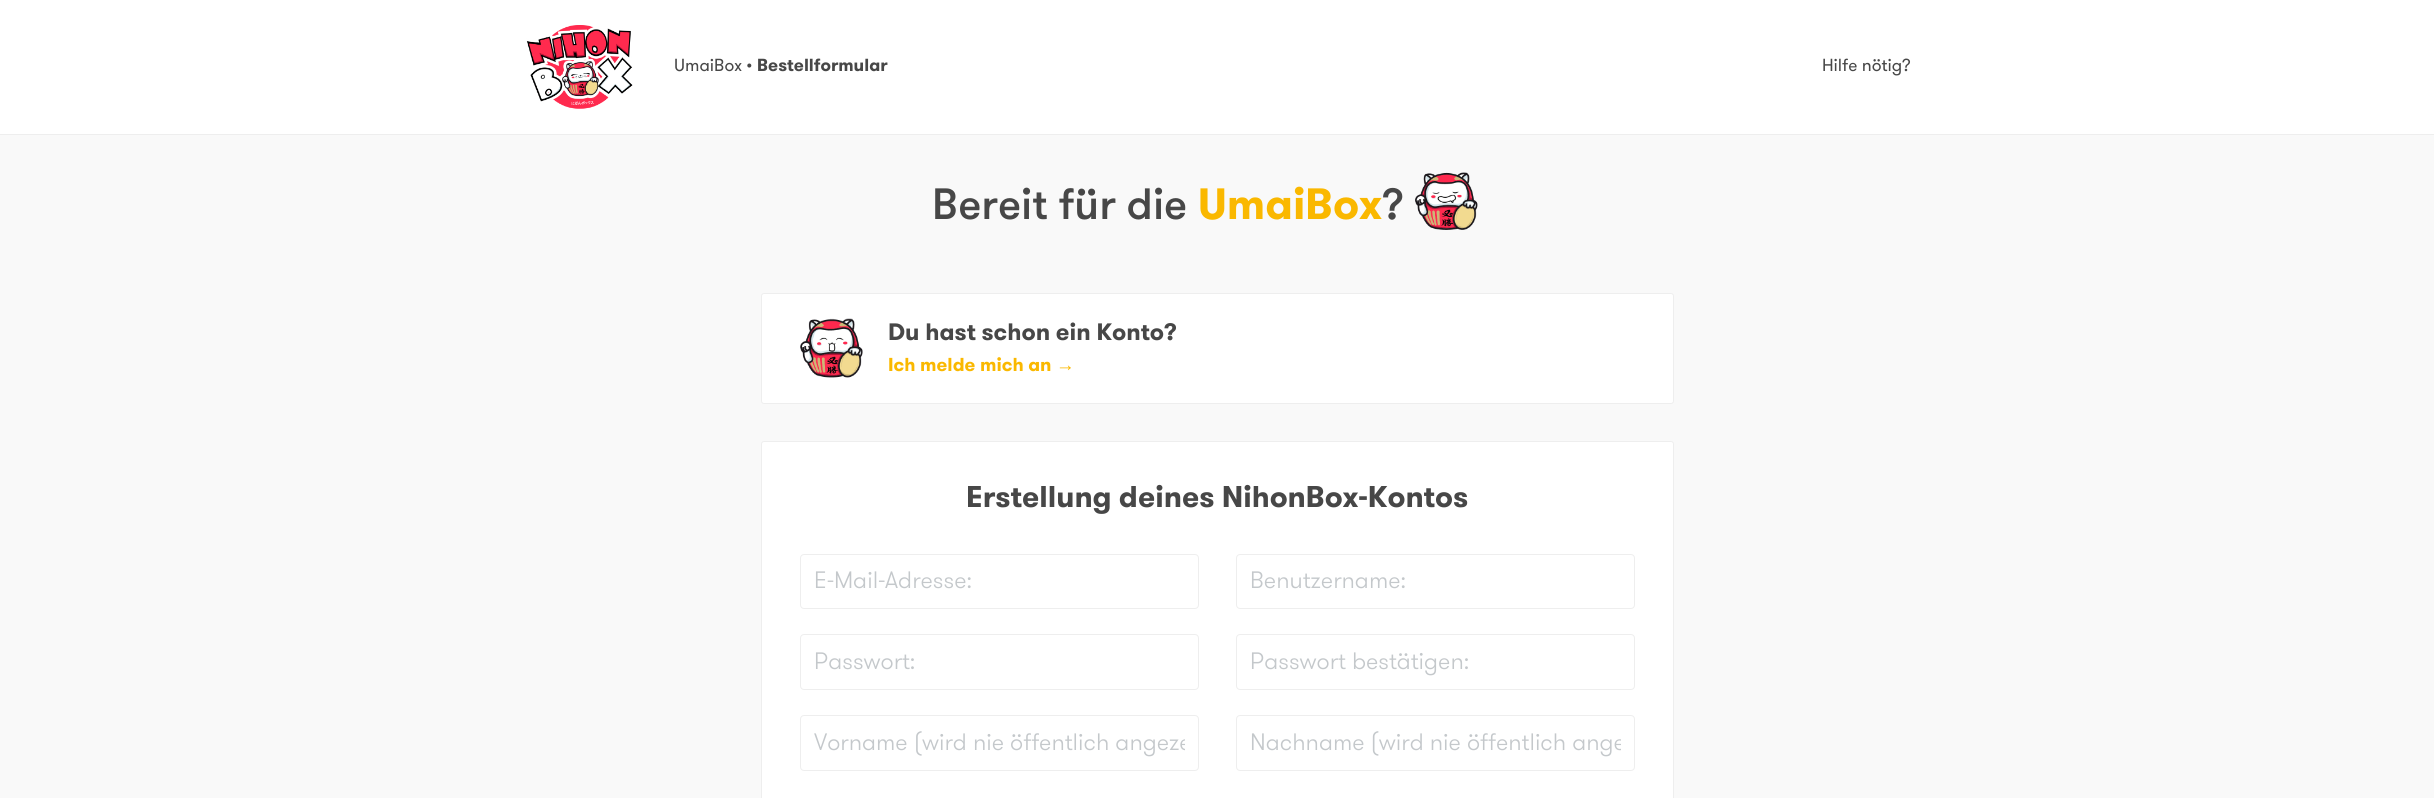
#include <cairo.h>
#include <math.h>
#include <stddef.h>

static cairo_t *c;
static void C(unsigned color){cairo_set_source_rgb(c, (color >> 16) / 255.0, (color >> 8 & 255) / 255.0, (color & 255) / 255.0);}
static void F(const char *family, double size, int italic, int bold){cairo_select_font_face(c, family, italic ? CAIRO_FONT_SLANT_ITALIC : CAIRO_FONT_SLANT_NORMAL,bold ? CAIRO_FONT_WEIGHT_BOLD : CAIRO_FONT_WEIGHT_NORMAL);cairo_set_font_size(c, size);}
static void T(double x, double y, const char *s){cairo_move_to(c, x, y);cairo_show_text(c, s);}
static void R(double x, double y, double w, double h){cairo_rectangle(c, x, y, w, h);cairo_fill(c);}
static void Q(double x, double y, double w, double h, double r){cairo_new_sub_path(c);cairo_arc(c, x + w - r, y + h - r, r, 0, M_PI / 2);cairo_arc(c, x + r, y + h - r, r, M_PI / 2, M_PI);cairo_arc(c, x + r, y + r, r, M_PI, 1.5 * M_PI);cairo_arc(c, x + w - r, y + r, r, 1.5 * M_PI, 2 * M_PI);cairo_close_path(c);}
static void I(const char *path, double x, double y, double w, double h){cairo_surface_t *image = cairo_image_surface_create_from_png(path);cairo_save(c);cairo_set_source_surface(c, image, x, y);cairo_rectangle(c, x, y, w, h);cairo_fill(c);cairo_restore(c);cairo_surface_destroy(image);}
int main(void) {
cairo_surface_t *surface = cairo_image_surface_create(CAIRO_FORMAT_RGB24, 2434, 798);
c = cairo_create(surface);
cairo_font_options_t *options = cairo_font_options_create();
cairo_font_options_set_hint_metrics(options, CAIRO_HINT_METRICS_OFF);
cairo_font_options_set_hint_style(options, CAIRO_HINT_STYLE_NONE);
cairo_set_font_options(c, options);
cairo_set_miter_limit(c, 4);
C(0xf9f9f9);
cairo_paint(c);
C(0xffffff);
R(0,0,2434,134);
C(0xeeeeee);
R(0,134,2434,1);
I("1.png",526,25,107,84);
F("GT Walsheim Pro",17.5,0,0);
C(0x474747);
T(674,71,"UmaiBox •");
F("GT Walsheim Pro",17.5,0,1);
T(757,71,"Bestellformular");
F("GT Walsheim Pro",17.5,0,0);
T(1822,71,"Hilfe nötig?");
F("GT Walsheim Pro Medium",43.75,0,0);
T(932,219,"Bereit für die");
F("GT Walsheim Pro",43.75,0,1);
C(0xfab800);
T(1198,219,"UmaiBox");
F("GT Walsheim Pro Medium",43.75,0,0);
C(0x474747);
T(1382,219,"?");
I("2.png",1415,172,63,58);
C(0xffffff);
Q(761.5,293.5,912,110,2.5);
cairo_fill_preserve(c);
C(0xeeeeee);
cairo_set_line_width(c,1);
cairo_stroke(c);
I("3.png",800,318,63,60);
F("GT Walsheim Pro",23.75,0,1);
C(0x474747);
T(888,340,"Du hast schon ein Konto?");
F("GT Walsheim Pro",18.75,0,1);
C(0xfab800);
T(888,371,"Ich melde mich an");
F("Liberation Serif",18.75,0,1);
T(1056,371,"→");
C(0xffffff);
Q(761.5,441.5,912,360,2.5);
cairo_fill_preserve(c);
C(0xeeeeee);
cairo_stroke(c);
F("GT Walsheim Pro",30,0,1);
C(0x474747);
T(966,507,"Erstellung deines NihonBox-Kontos");
Q(800.5,554.5,398,54,3.5);
C(0xeeeeee);
cairo_stroke(c);
F("GT Walsheim Pro Light",23.75,0,0);
C(0xc4c8cb);
T(814,588,"E-Mail-Adresse:");
Q(1236.5,554.5,398,54,3.5);
C(0xeeeeee);
cairo_stroke(c);
C(0xc4c8cb);
T(1250,588,"Benutzername:");
Q(800.5,634.5,398,55,3.5);
C(0xeeeeee);
cairo_stroke(c);
C(0xc4c8cb);
T(814,669,"Passwort:");
Q(1236.5,634.5,398,55,3.5);
C(0xeeeeee);
cairo_stroke(c);
C(0xc4c8cb);
T(1250,669,"Passwort bestätigen:");
Q(800.5,715.5,398,55,3.5);
C(0xeeeeee);
cairo_stroke(c);
cairo_save(c);
cairo_rectangle(c,814,726,371,33);
cairo_clip(c);
C(0xc4c8cb);
T(814,750,"Vorname (wird nie öffentlich angeze");
cairo_restore(c);
Q(1236.5,715.5,398,55,3.5);
cairo_stroke(c);
cairo_save(c);
cairo_rectangle(c,1250,726,371,33);
cairo_clip(c);
C(0xc4c8cb);
T(1250,750,"Nachname (wird nie öffentlich ange");
cairo_restore(c);
cairo_surface_write_to_png(surface, "o.png");
cairo_font_options_destroy(options);
cairo_destroy(c);
cairo_surface_destroy(surface);
return 0;
}
